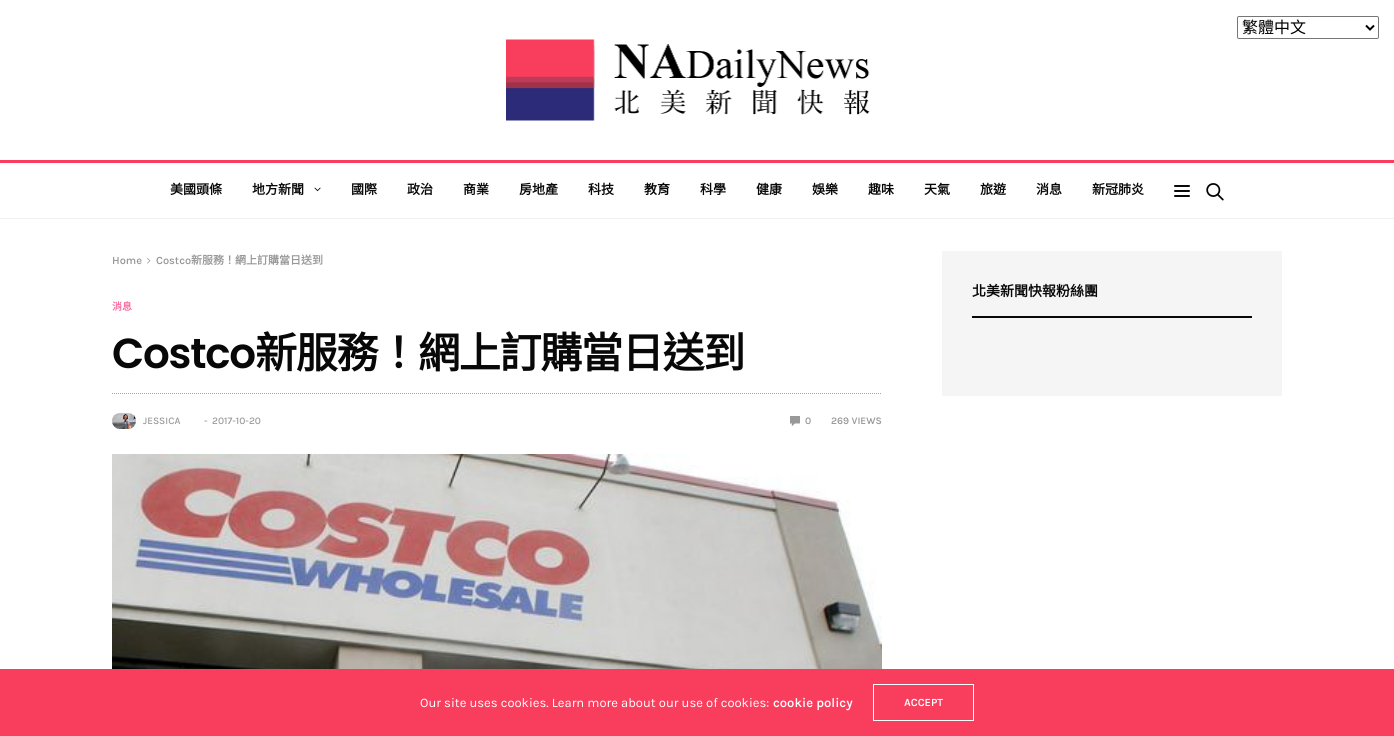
#include <cairo.h>
#include <math.h>
#include <stddef.h>

static cairo_t *c;
static void C(unsigned color){cairo_set_source_rgb(c, (color >> 16) / 255.0, (color >> 8 & 255) / 255.0, (color & 255) / 255.0);}
static void F(const char *family, double size, int italic, int bold){cairo_select_font_face(c, family, italic ? CAIRO_FONT_SLANT_ITALIC : CAIRO_FONT_SLANT_NORMAL,bold ? CAIRO_FONT_WEIGHT_BOLD : CAIRO_FONT_WEIGHT_NORMAL);cairo_set_font_size(c, size);}
static void T(double x, double y, const char *s){cairo_move_to(c, x, y);cairo_show_text(c, s);}
static void L(double x, double y, const char *s, double letter, double word){cairo_move_to(c, x, y);while (*s) {char ch[5] = {0};int n = 0;do ch[n++] = *s++; while ((*s & 0xC0) == 0x80);cairo_show_text(c, ch);cairo_rel_move_to(c, letter + word * (*ch == ' '), 0);}}
static void R(double x, double y, double w, double h){cairo_rectangle(c, x, y, w, h);cairo_fill(c);}
static void Q(double x, double y, double w, double h, double r){cairo_new_sub_path(c);cairo_arc(c, x + w - r, y + h - r, r, 0, M_PI / 2);cairo_arc(c, x + r, y + h - r, r, M_PI / 2, M_PI);cairo_arc(c, x + r, y + r, r, M_PI, 1.5 * M_PI);cairo_arc(c, x + w - r, y + r, r, 1.5 * M_PI, 2 * M_PI);cairo_close_path(c);}
static void I(const char *path, double x, double y, double w, double h){cairo_surface_t *image = cairo_image_surface_create_from_png(path);cairo_save(c);cairo_set_source_surface(c, image, x, y);cairo_rectangle(c, x, y, w, h);cairo_fill(c);cairo_restore(c);cairo_surface_destroy(image);}
int main(void) {
cairo_surface_t *surface = cairo_image_surface_create(CAIRO_FORMAT_RGB24, 1394, 736);
c = cairo_create(surface);
cairo_font_options_t *options = cairo_font_options_create();
cairo_font_options_set_hint_metrics(options, CAIRO_HINT_METRICS_OFF);
cairo_font_options_set_hint_style(options, CAIRO_HINT_STYLE_NONE);
cairo_set_font_options(c, options);
cairo_set_miter_limit(c, 4);
C(0xffffff);
cairo_paint(c);
Q(1237.5,16.5,141,22,1.5);
C(0x767676);
cairo_set_line_width(c,1);
cairo_stroke(c);
cairo_new_path(c);
cairo_move_to(c,1366,25.5);
cairo_line_to(c,1370,29.5);
cairo_line_to(c,1374,25.5);
C(0x000000);
cairo_set_line_width(c,2);
cairo_stroke(c);
F("Noto Sans CJK TC",16,0,0);
T(1242,33,"繁體中文");
I("1.png",506,39,364,82);
C(0xf93d5d);
R(0,160,1394,3);
C(0xf0f0f0);
R(0,218,1394,1);
F("Noto Sans CJK TC",13,0,1);
C(0x080808);
T(170,194,"美國頭條");
T(252,194,"地方新聞");
I("2.png",314,187,7,5);
T(351,194,"國際");
T(407,194,"政治");
T(463,194,"商業");
T(519,194,"房地產");
T(588,194,"科技");
T(644,194,"教育");
T(700,194,"科學");
T(756,194,"健康");
T(812,194,"娛樂");
T(868,194,"趣味");
T(924,194,"天氣");
T(980,194,"旅遊");
T(1036,194,"消息");
T(1092,194,"新冠肺炎");
C(0x0a0a0a);
Q(1174,185,16,2,1);
cairo_fill(c);
Q(1174,190,16,2,1);
cairo_fill(c);
Q(1174,195,16,2,1);
cairo_fill(c);
I("3.png",1206,183,18,18);
F("Karla SemiBold",11,0,0);
C(0x989898);
T(112,264,"Home");
I("4.png",147,258,4,6);
T(156,264,"Costco");
F("Noto Sans CJK TC",11,0,1);
T(191,264,"新服務！網上訂購當日送到");
F("Noto Sans CJK TC",10,0,1);
C(0xf9669c);
T(112,310,"消息");
cairo_new_path(c);
cairo_move_to(c,112,393.5);
cairo_line_to(c,882,393.5);
C(0xa8a8a8);
cairo_set_line_width(c,1);
cairo_set_dash(c,(double[]){1,1},2,0);
cairo_stroke(c);
F("Poppins SemiBold",42,0,0);
C(0x080808);
L(112,368,"Costco",-1.25,0);
F("Noto Sans CJK TC",42,0,1);
L(255,368,"新服務！網上訂購當日送到",-1.25,0);
I("5.png",112,413,24,16);
F("Karla Medium",10,0,0);
C(0x989898);
T(143,424,"JESSICA");
T(204,424,"-");
T(212,424,"2017-10-20");
I("6.png",790,416,10,10);
F("Karla SemiBold",10,0,0);
T(805,424,"0");
T(831,424,"269 VIEWS");
I("7.png",112,454,770,215);
C(0xf5f5f5);
R(942,251,340,145);
C(0x080808);
R(972,316,280,2);
F("Noto Sans CJK TC",14,0,1);
T(972,296,"北美新聞快報粉絲團");
C(0xf93d5d);
R(0,669,1394,67);
F("Karla",13,0,0);
C(0xffffff);
T(420,707,"Our site uses cookies. Learn more about our use of cookies:");
F("Karla SemiBold",13,0,0);
T(773,707,"cookie policy");
cairo_rectangle(c,873.5,684.5,100,36);
cairo_set_dash(c,NULL,0,0);
cairo_stroke(c);
F("Karla SemiBold",11,0,0);
T(904,706,"ACCEPT");
cairo_surface_write_to_png(surface, "o.png");
cairo_font_options_destroy(options);
cairo_destroy(c);
cairo_surface_destroy(surface);
return 0;
}
